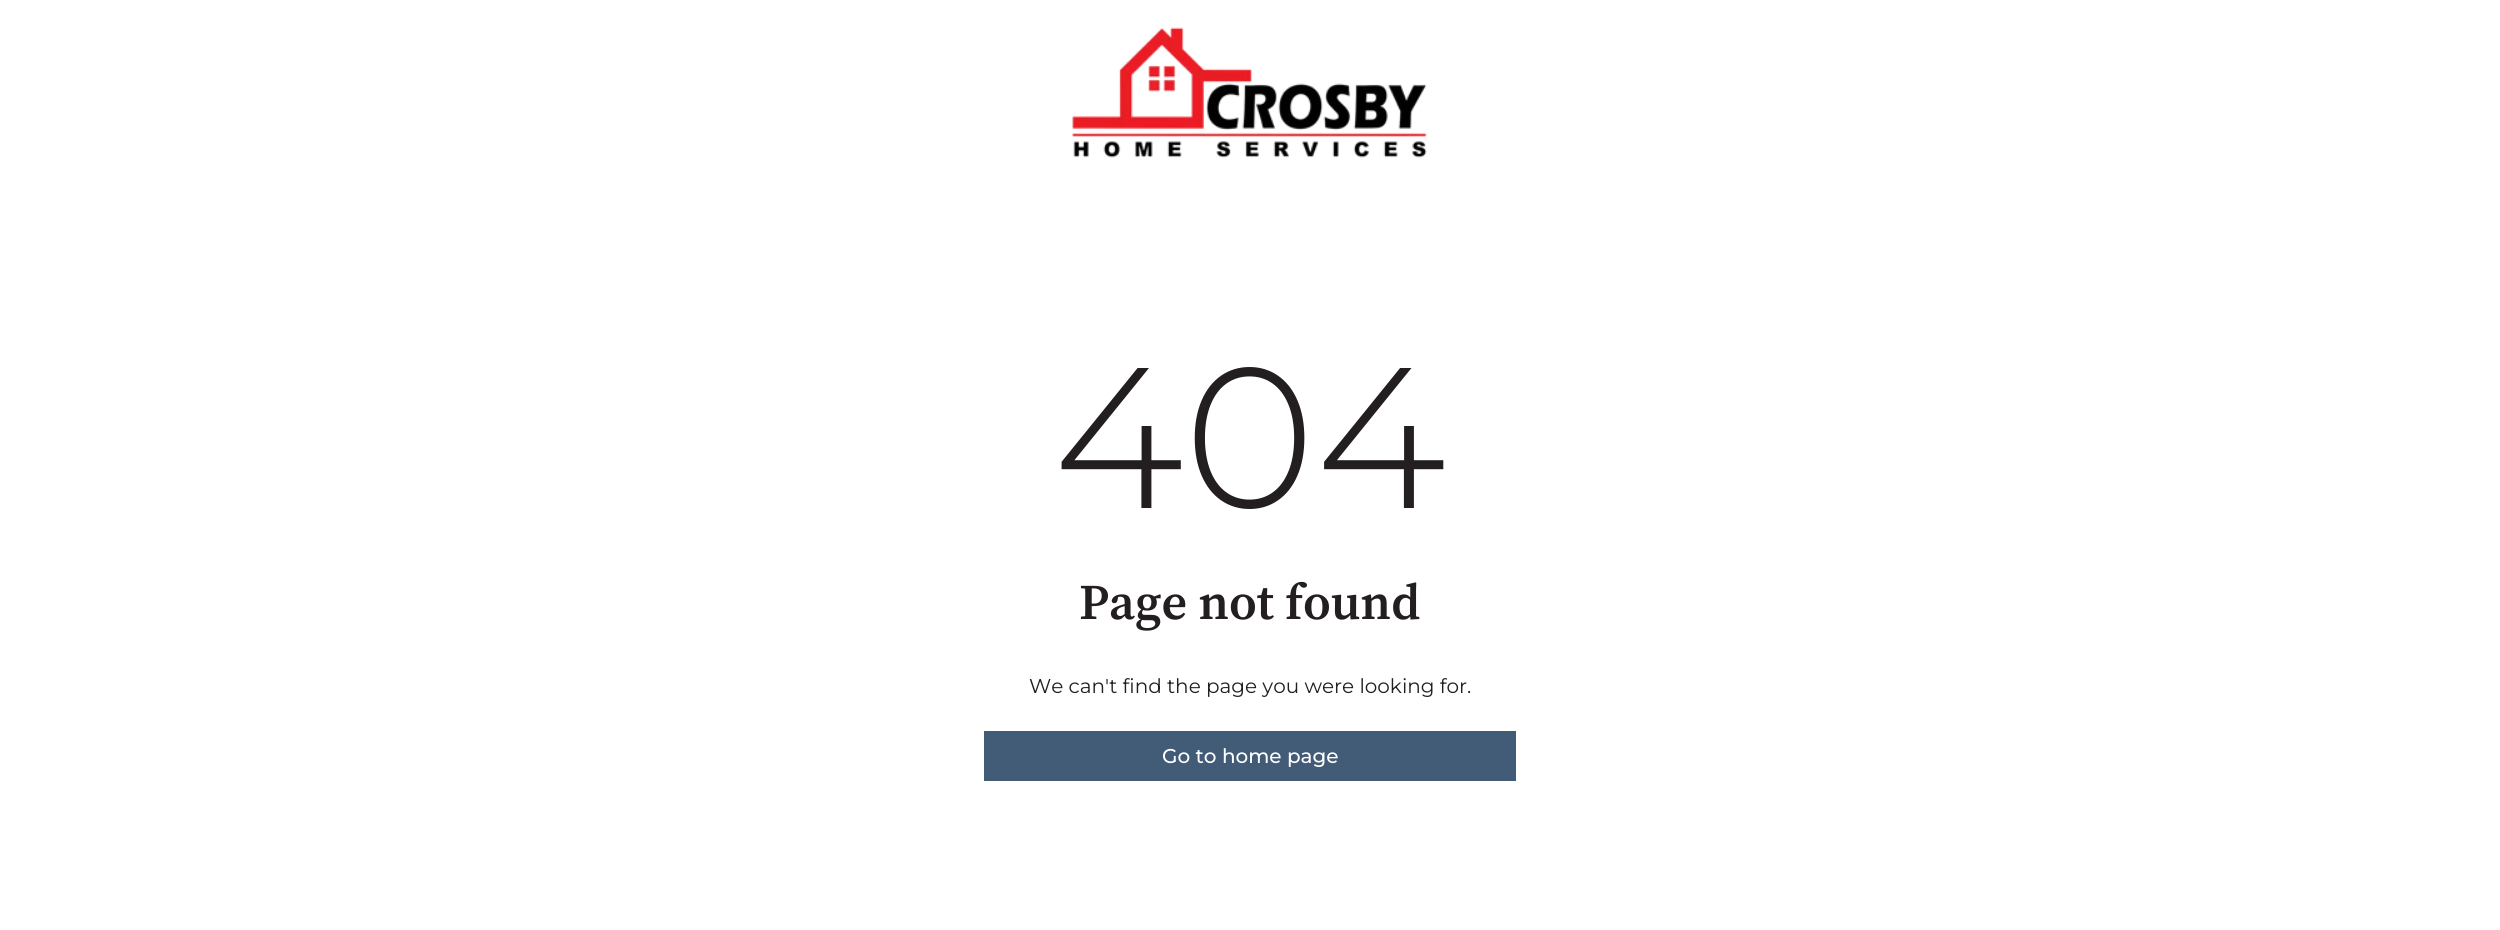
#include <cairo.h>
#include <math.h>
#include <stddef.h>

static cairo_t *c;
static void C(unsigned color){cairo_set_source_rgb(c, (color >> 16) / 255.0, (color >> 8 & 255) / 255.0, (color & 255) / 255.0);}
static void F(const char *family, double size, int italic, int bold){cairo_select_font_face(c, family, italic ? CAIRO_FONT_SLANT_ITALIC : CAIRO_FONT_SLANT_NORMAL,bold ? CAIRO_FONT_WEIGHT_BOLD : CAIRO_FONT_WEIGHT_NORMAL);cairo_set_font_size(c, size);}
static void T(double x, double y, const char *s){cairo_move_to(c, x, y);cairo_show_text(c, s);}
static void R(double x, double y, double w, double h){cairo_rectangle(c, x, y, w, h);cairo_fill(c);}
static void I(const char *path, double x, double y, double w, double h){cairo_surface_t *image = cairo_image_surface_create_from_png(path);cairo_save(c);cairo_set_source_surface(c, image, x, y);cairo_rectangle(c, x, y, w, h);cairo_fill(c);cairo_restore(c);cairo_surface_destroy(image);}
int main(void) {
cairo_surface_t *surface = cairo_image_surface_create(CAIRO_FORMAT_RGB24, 2500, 930);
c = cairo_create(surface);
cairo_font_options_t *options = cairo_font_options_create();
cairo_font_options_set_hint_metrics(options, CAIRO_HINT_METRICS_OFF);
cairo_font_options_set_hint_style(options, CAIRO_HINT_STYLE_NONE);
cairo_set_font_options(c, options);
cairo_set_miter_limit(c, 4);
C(0xffffff);
cairo_paint(c);
I("1.png",1072,27,355,131);
F("Montserrat Light",200,0,0);
C(0x231f20);
T(1053,508,"404");
F("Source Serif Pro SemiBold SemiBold",50,0,0);
T(1079,619,"Page not found");
F("Montserrat",20,0,0);
T(1029,693,"We can't find the page you were looking for.");
C(0x425b76);
R(984,731,532,50);
F("Montserrat Medium",20,0,0);
C(0xffffff);
T(1162,763,"Go to home page");
cairo_surface_write_to_png(surface, "o.png");
cairo_font_options_destroy(options);
cairo_destroy(c);
cairo_surface_destroy(surface);
return 0;
}
